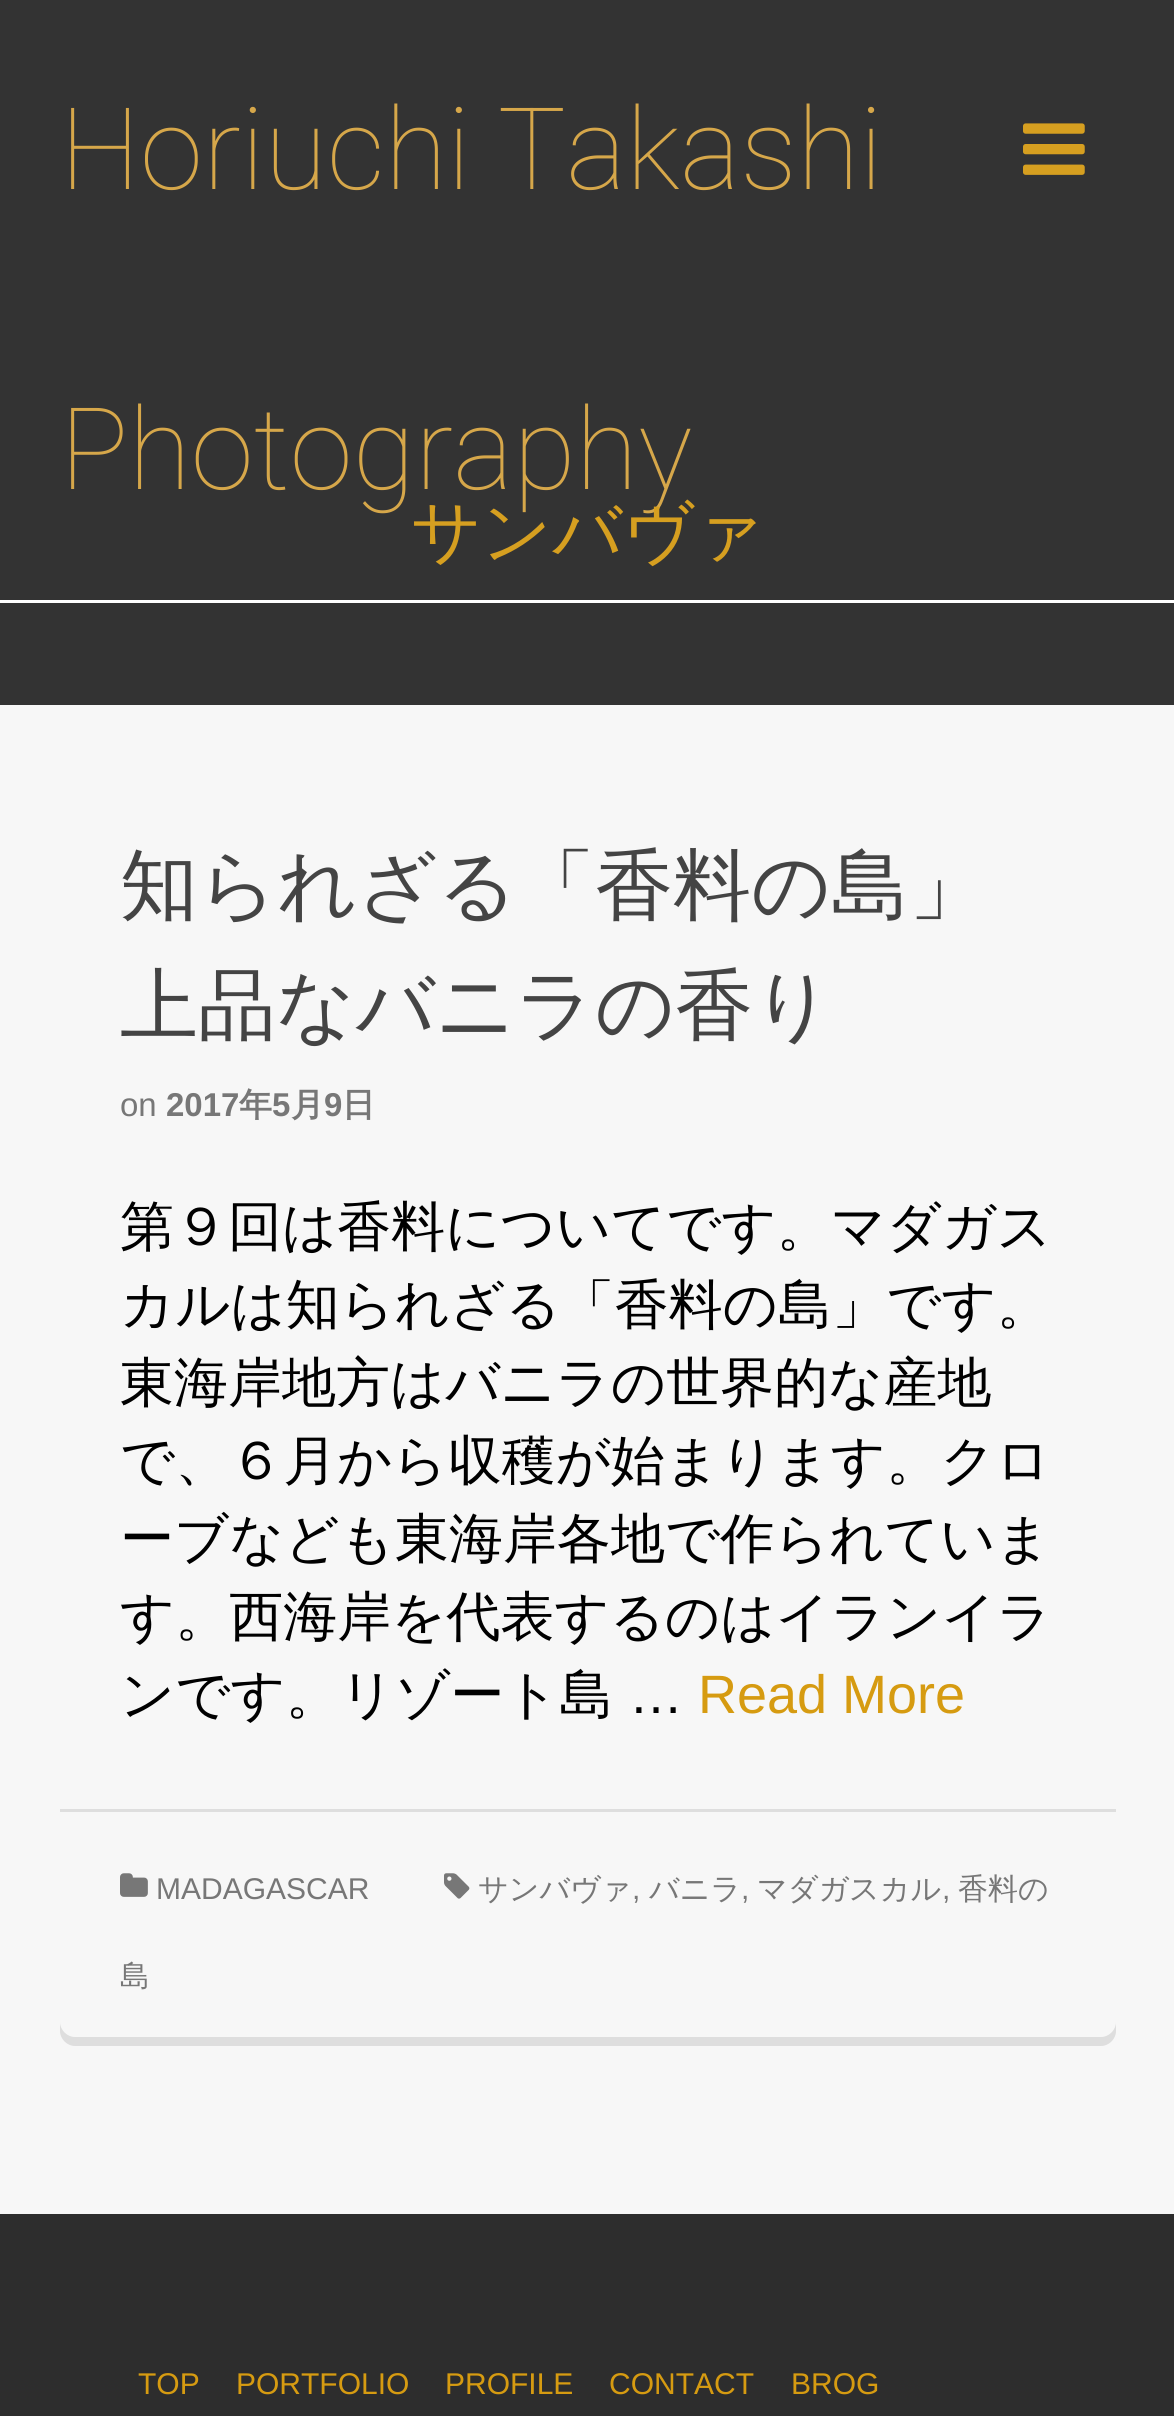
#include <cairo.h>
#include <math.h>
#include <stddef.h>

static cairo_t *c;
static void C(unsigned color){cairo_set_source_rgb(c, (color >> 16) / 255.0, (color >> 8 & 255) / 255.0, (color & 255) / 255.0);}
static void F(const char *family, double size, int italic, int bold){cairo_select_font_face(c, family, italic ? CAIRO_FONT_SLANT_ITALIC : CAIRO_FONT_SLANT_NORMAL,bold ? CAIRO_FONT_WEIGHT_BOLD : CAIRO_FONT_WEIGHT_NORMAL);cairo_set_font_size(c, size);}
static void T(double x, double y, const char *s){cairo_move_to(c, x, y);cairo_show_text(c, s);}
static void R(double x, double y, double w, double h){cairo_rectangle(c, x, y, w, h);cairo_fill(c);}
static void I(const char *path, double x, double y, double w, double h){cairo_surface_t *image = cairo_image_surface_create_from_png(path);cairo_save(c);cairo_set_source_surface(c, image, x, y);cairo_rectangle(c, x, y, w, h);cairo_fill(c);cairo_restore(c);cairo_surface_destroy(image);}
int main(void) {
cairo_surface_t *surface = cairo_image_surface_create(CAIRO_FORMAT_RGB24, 1174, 2416);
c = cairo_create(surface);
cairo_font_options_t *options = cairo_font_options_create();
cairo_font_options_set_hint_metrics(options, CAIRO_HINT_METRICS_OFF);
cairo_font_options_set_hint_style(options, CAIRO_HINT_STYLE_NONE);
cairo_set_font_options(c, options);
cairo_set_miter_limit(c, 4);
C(0xf7f7f7);
cairo_paint(c);
C(0x333333);
R(0,0,1174,705);
C(0xffffff);
R(0,600,1174,3);
F("Roboto Thin",114,0,0);
C(0xd6a74a);
T(60,189,"Horiuchi Takashi");
T(60,489,"Photography");
I("1.png",1023,123,62,52);
F("WenQuanYi Zen Hei Medium",69,0,0);
C(0xd69f20);
T(411,555,"サンバヴァ");
F("WenQuanYi Zen Hei Medium",78,0,0);
C(0x444444);
T(120,912,"知られざる「香料の島」");
T(120,1032,"上品なバニラの香り");
F("Liberation Sans",33,0,0);
C(0x777777);
T(120,1116,"on");
F("Liberation Sans",33,0,1);
T(166,1116,"2017");
F("WenQuanYi Zen Hei",33,0,1);
T(239,1116,"年");
F("Liberation Sans",33,0,1);
T(272,1116,"5");
F("WenQuanYi Zen Hei",33,0,1);
T(291,1116,"月");
F("Liberation Sans",33,0,1);
T(324,1116,"9");
F("WenQuanYi Zen Hei",33,0,1);
T(342,1116,"日");
F("WenQuanYi Zen Hei Medium",54,0,0);
C(0x000000);
T(120,1245,"第９回は香料についてです。マダガス");
T(120,1323,"カルは知られざる「香料の島」です。");
T(120,1401,"東海岸地方はバニラの世界的な産地");
T(120,1479,"で、６月から収穫が始まります。クロ");
T(120,1557,"ーブなども東海岸各地で作られていま");
T(120,1635,"す。西海岸を代表するのはイランイラ");
T(120,1713,"ンです。リゾート島");
F("Liberation Sans",54,0,0);
T(629,1713,"…");
C(0xd69b11);
T(698,1713,"Read More");
C(0xdedede);
cairo_new_path(c);
cairo_move_to(c,60,2022);
cairo_line_to(c,60,2031);
cairo_curve_to(c,60,2039,67,2046,75,2046);
cairo_line_to(c,1101,2046);
cairo_curve_to(c,1109,2046,1116,2039,1116,2031);
cairo_line_to(c,1116,2022);
cairo_curve_to(c,1116,2030,1109,2037,1101,2037);
cairo_line_to(c,75,2037);
cairo_curve_to(c,67,2037,60,2030,60,2022);
cairo_close_path(c);
cairo_fill(c);
R(60,1809,1056,3);
I("2.png",444,1873,26,26);
F("WenQuanYi Zen Hei Medium",30,0,0);
C(0x777777);
T(478,1899,"サンバヴァ");
F("Liberation Sans",30,0,0);
T(632,1899,",");
F("WenQuanYi Zen Hei Medium",30,0,0);
T(649,1899,"バニラ");
F("Liberation Sans",30,0,0);
T(741,1899,",");
F("WenQuanYi Zen Hei Medium",30,0,0);
T(757,1899,"マダガスカル");
F("Liberation Sans",30,0,0);
T(942,1899,",");
F("WenQuanYi Zen Hei Medium",30,0,0);
T(958,1899,"香料の");
T(120,1986,"島");
I("3.png",120,1873,28,24);
F("Liberation Sans",30,0,0);
T(156,1899,"MADAGASCAR");
C(0x2d2d2d);
R(0,2214,1174,202);
C(0xd69b11);
T(138,2394,"TOP");
T(236,2394,"PORTFOLIO");
T(445,2394,"PROFILE");
T(609,2394,"CONTACT");
T(791,2394,"BROG");
cairo_surface_write_to_png(surface, "o.png");
cairo_font_options_destroy(options);
cairo_destroy(c);
cairo_surface_destroy(surface);
return 0;
}
